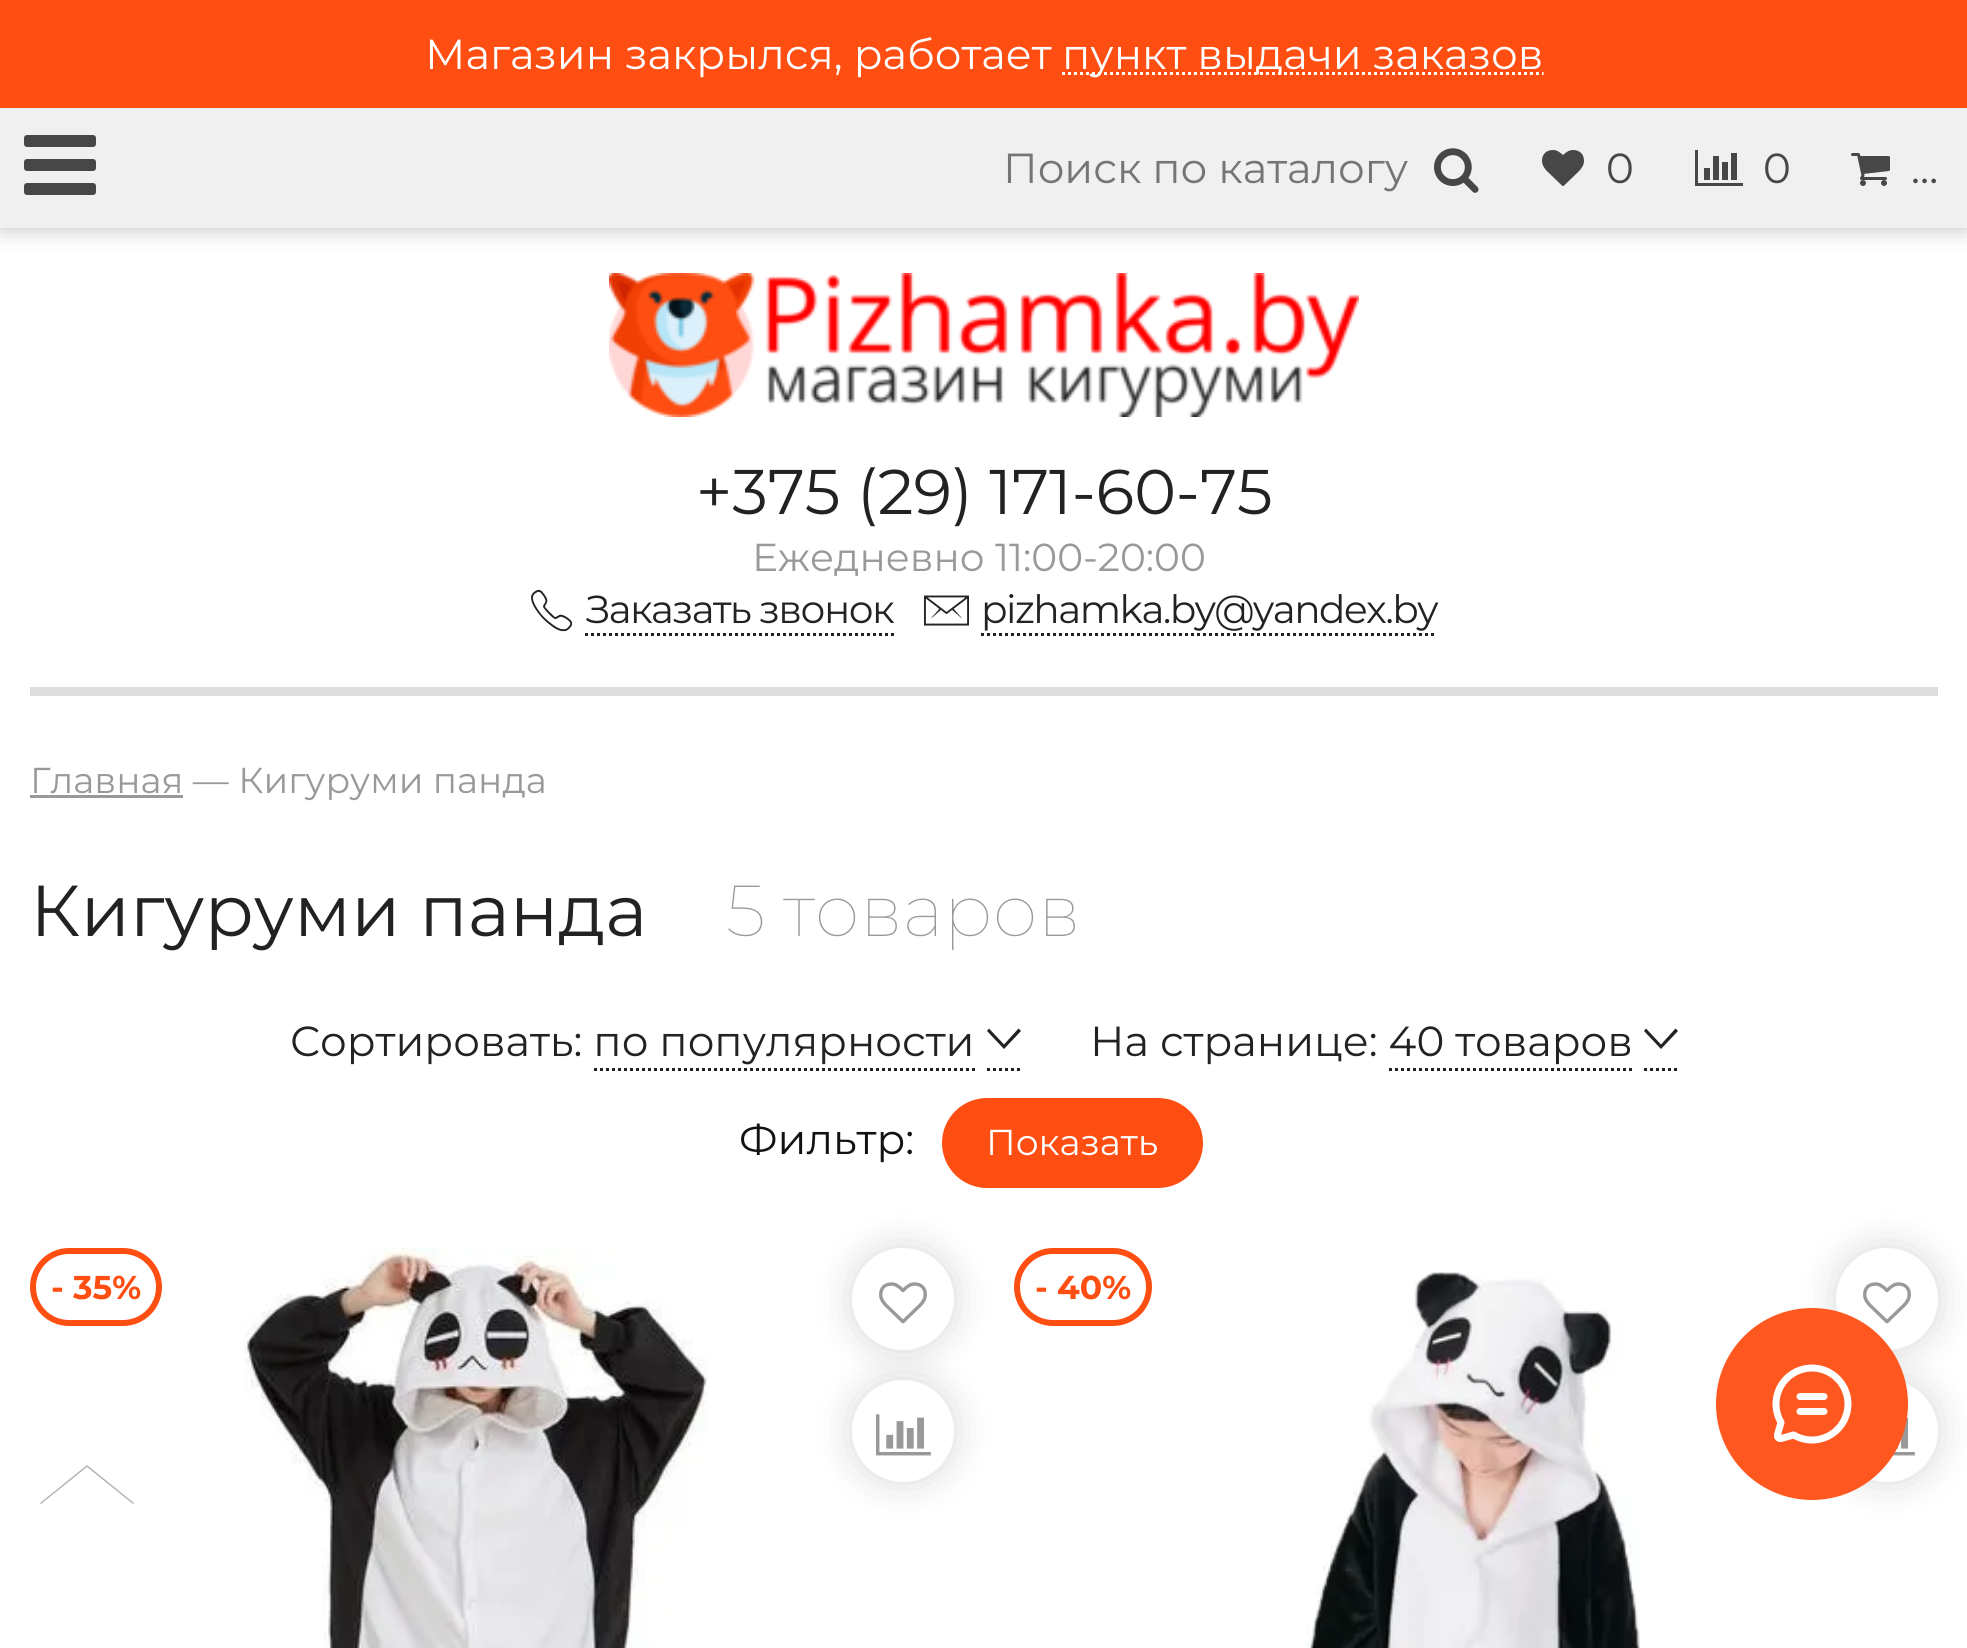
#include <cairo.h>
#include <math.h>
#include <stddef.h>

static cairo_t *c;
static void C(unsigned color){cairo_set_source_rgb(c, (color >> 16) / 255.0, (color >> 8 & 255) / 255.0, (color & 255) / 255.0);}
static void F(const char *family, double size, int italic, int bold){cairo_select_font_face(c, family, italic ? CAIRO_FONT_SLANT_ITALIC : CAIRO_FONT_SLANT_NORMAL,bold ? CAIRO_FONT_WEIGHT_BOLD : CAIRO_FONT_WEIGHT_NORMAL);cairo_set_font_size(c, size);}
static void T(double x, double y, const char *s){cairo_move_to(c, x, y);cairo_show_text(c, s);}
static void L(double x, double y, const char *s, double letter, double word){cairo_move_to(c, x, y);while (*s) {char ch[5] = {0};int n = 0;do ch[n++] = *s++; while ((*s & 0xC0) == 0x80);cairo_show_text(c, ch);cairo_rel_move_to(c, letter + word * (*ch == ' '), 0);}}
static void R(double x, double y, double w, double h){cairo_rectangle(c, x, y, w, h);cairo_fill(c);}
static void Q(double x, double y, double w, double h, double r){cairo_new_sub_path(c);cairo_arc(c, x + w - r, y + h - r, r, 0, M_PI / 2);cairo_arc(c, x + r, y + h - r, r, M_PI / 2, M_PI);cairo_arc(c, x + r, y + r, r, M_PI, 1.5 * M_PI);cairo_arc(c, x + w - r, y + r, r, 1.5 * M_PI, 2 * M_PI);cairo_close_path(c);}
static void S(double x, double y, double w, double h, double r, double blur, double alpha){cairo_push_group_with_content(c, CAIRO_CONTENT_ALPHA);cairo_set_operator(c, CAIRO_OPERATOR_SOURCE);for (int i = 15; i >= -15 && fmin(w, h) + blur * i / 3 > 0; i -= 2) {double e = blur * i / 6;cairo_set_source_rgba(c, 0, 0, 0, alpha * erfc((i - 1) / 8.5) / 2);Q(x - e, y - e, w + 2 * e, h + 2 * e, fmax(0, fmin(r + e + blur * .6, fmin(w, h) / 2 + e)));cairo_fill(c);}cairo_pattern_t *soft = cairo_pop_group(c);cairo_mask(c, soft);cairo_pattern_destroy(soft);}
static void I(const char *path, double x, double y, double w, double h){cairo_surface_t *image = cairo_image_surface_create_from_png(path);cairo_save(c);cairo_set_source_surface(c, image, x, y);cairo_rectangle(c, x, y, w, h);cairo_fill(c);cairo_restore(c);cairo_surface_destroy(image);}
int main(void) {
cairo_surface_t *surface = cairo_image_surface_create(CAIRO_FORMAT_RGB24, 1967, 1648);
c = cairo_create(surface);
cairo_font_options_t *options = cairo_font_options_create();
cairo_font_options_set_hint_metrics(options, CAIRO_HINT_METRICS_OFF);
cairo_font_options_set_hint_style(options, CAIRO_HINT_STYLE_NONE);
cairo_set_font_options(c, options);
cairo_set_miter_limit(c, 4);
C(0xffffff);
cairo_paint(c);
C(0x000000);
S(0,108,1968,120,0,12,.25);
C(0xff4e12);
R(0,0,1967,108);
F("Montserrat",42,0,0);
C(0xffffff);
T(425,69,"Магазин закрылся, работает");
cairo_new_path(c);
cairo_move_to(c,1062,73.5);
cairo_line_to(c,1543.5,73.5);
cairo_set_line_width(c,3);
cairo_set_dash(c,(double[]){3,3},2,0);
cairo_stroke(c);
T(1062,69,"пункт выдачи заказов");
C(0xf0f0f0);
R(0,108,1967,120);
I("1.png",24,135,72,60);
C(0x757575);
T(1003,183,"Поиск по каталогу");
I("2.png",1434,148,45,45);
I("3.png",1542,150,42,36);
C(0x474747);
T(1606,183,"0");
I("4.png",1695,150,48,36);
T(1763,183,"0");
I("5.png",1851,153,39,33);
T(1911,183,"…");
C(0xdddddd);
R(30,687,1908,9);
I("6.png",609,273,750,144);
F("Montserrat",63,0,0);
C(0x222222);
T(696,514,"+375 (29) 171-60-75");
F("Montserrat",39,0,0);
C(0x999999);
T(752,571,"Ежедневно 11:00-20:00");
I("7.png",531,589,42,43);
C(0x222222);
L(586,623,"Заказать звонок",-1.5,0);
cairo_new_path(c);
cairo_move_to(c,585,634.5);
cairo_line_to(c,894,634.5);
cairo_stroke(c);
I("8.png",924,595,45,31);
L(981,623,"pizhamka.by@yandex.by",-1.5,0);
cairo_new_path(c);
cairo_move_to(c,981,634.5);
cairo_line_to(c,1437,634.5);
cairo_stroke(c);
C(0x999999);
R(30,795,153,3);
F("Montserrat",36,0,0);
T(30,793,"Главная — Кигуруми панда");
F("Montserrat",72,0,0);
C(0x222222);
T(30,936,"Кигуруми панда");
F("Montserrat Thin",72,0,0);
C(0x999999);
T(726,936,"5 товаров");
F("Montserrat",42,0,0);
C(0x222222);
T(290,1056,"Сортировать: по популярности");
cairo_new_path(c);
cairo_move_to(c,594,1069.5);
cairo_line_to(c,975,1069.5);
cairo_stroke(c);
cairo_new_path(c);
cairo_move_to(c,987,1069.5);
cairo_line_to(c,1020,1069.5);
cairo_stroke(c);
cairo_new_path(c);
cairo_move_to(c,1018.5,1028.5);
cairo_line_to(c,1021,1031);
cairo_line_to(c,1004,1049);
cairo_line_to(c,987,1031);
cairo_line_to(c,989,1028.5);
cairo_line_to(c,1004,1044.5);
cairo_close_path(c);
cairo_fill(c);
T(1090,1056,"На странице: 40 товаров");
cairo_new_path(c);
cairo_move_to(c,1389,1069.5);
cairo_line_to(c,1632,1069.5);
cairo_stroke(c);
cairo_new_path(c);
cairo_move_to(c,1644,1069.5);
cairo_line_to(c,1677,1069.5);
cairo_stroke(c);
cairo_new_path(c);
cairo_move_to(c,1675.5,1028.5);
cairo_line_to(c,1678,1031);
cairo_line_to(c,1661,1049);
cairo_line_to(c,1644,1031);
cairo_line_to(c,1646,1028.5);
cairo_line_to(c,1661,1044.5);
cairo_close_path(c);
cairo_fill(c);
C(0x121212);
T(739,1154,"Фильтр:");
C(0xff4e12);
Q(942,1098,261,90,45);
cairo_fill(c);
F("Montserrat",36,0,0);
C(0xffffff);
T(986,1155,"Показать");
Q(33,1251,126,72,36);
C(0xff4e12);
cairo_set_line_width(c,6);
cairo_set_dash(c,NULL,0,0);
cairo_stroke(c);
F("Montserrat",33,0,1);
T(51,1299,"- 35%");
I("9.png",244,1248,465,400);
C(0x000000);
S(852,1248,102,102,51,19.5,.15);
C(0xffffff);
cairo_arc(c,903,1299,51,0,2 * M_PI);
cairo_fill(c);
I("10.png",879,1282,48,42);
C(0x000000);
S(852,1380,102,102,51,19.5,.15);
C(0xffffff);
cairo_arc(c,903,1431,51,0,2 * M_PI);
cairo_fill(c);
I("11.png",876,1414,55,42);
Q(1017,1251,132,72,36);
C(0xff4e12);
cairo_stroke(c);
T(1035,1299,"- 40%");
I("12.png",1307,1271,333,377);
C(0x000000);
S(1836,1248,102,102,51,19.5,.15);
C(0xffffff);
cairo_arc(c,1887,1299,51,0,2 * M_PI);
cairo_fill(c);
I("10.png",1863,1282,48,42);
C(0x000000);
S(1836,1380,102,102,51,19.5,.15);
C(0xffffff);
cairo_arc(c,1887,1431,51,0,2 * M_PI);
cairo_fill(c);
I("13.png",1892,1417,23,39);
C(0xb4b4b4);
cairo_new_path(c);
cairo_move_to(c,87,1465);
cairo_line_to(c,134,1503);
cairo_line_to(c,133,1504);
cairo_line_to(c,87,1467);
cairo_line_to(c,41,1504);
cairo_line_to(c,40,1503);
cairo_close_path(c);
cairo_fill(c);
C(0xff5720);
cairo_arc(c,1812,1404,96,0,2 * M_PI);
cairo_fill(c);
I("14.png",1772,1364,80,80);
cairo_surface_write_to_png(surface, "o.png");
cairo_font_options_destroy(options);
cairo_destroy(c);
cairo_surface_destroy(surface);
return 0;
}
